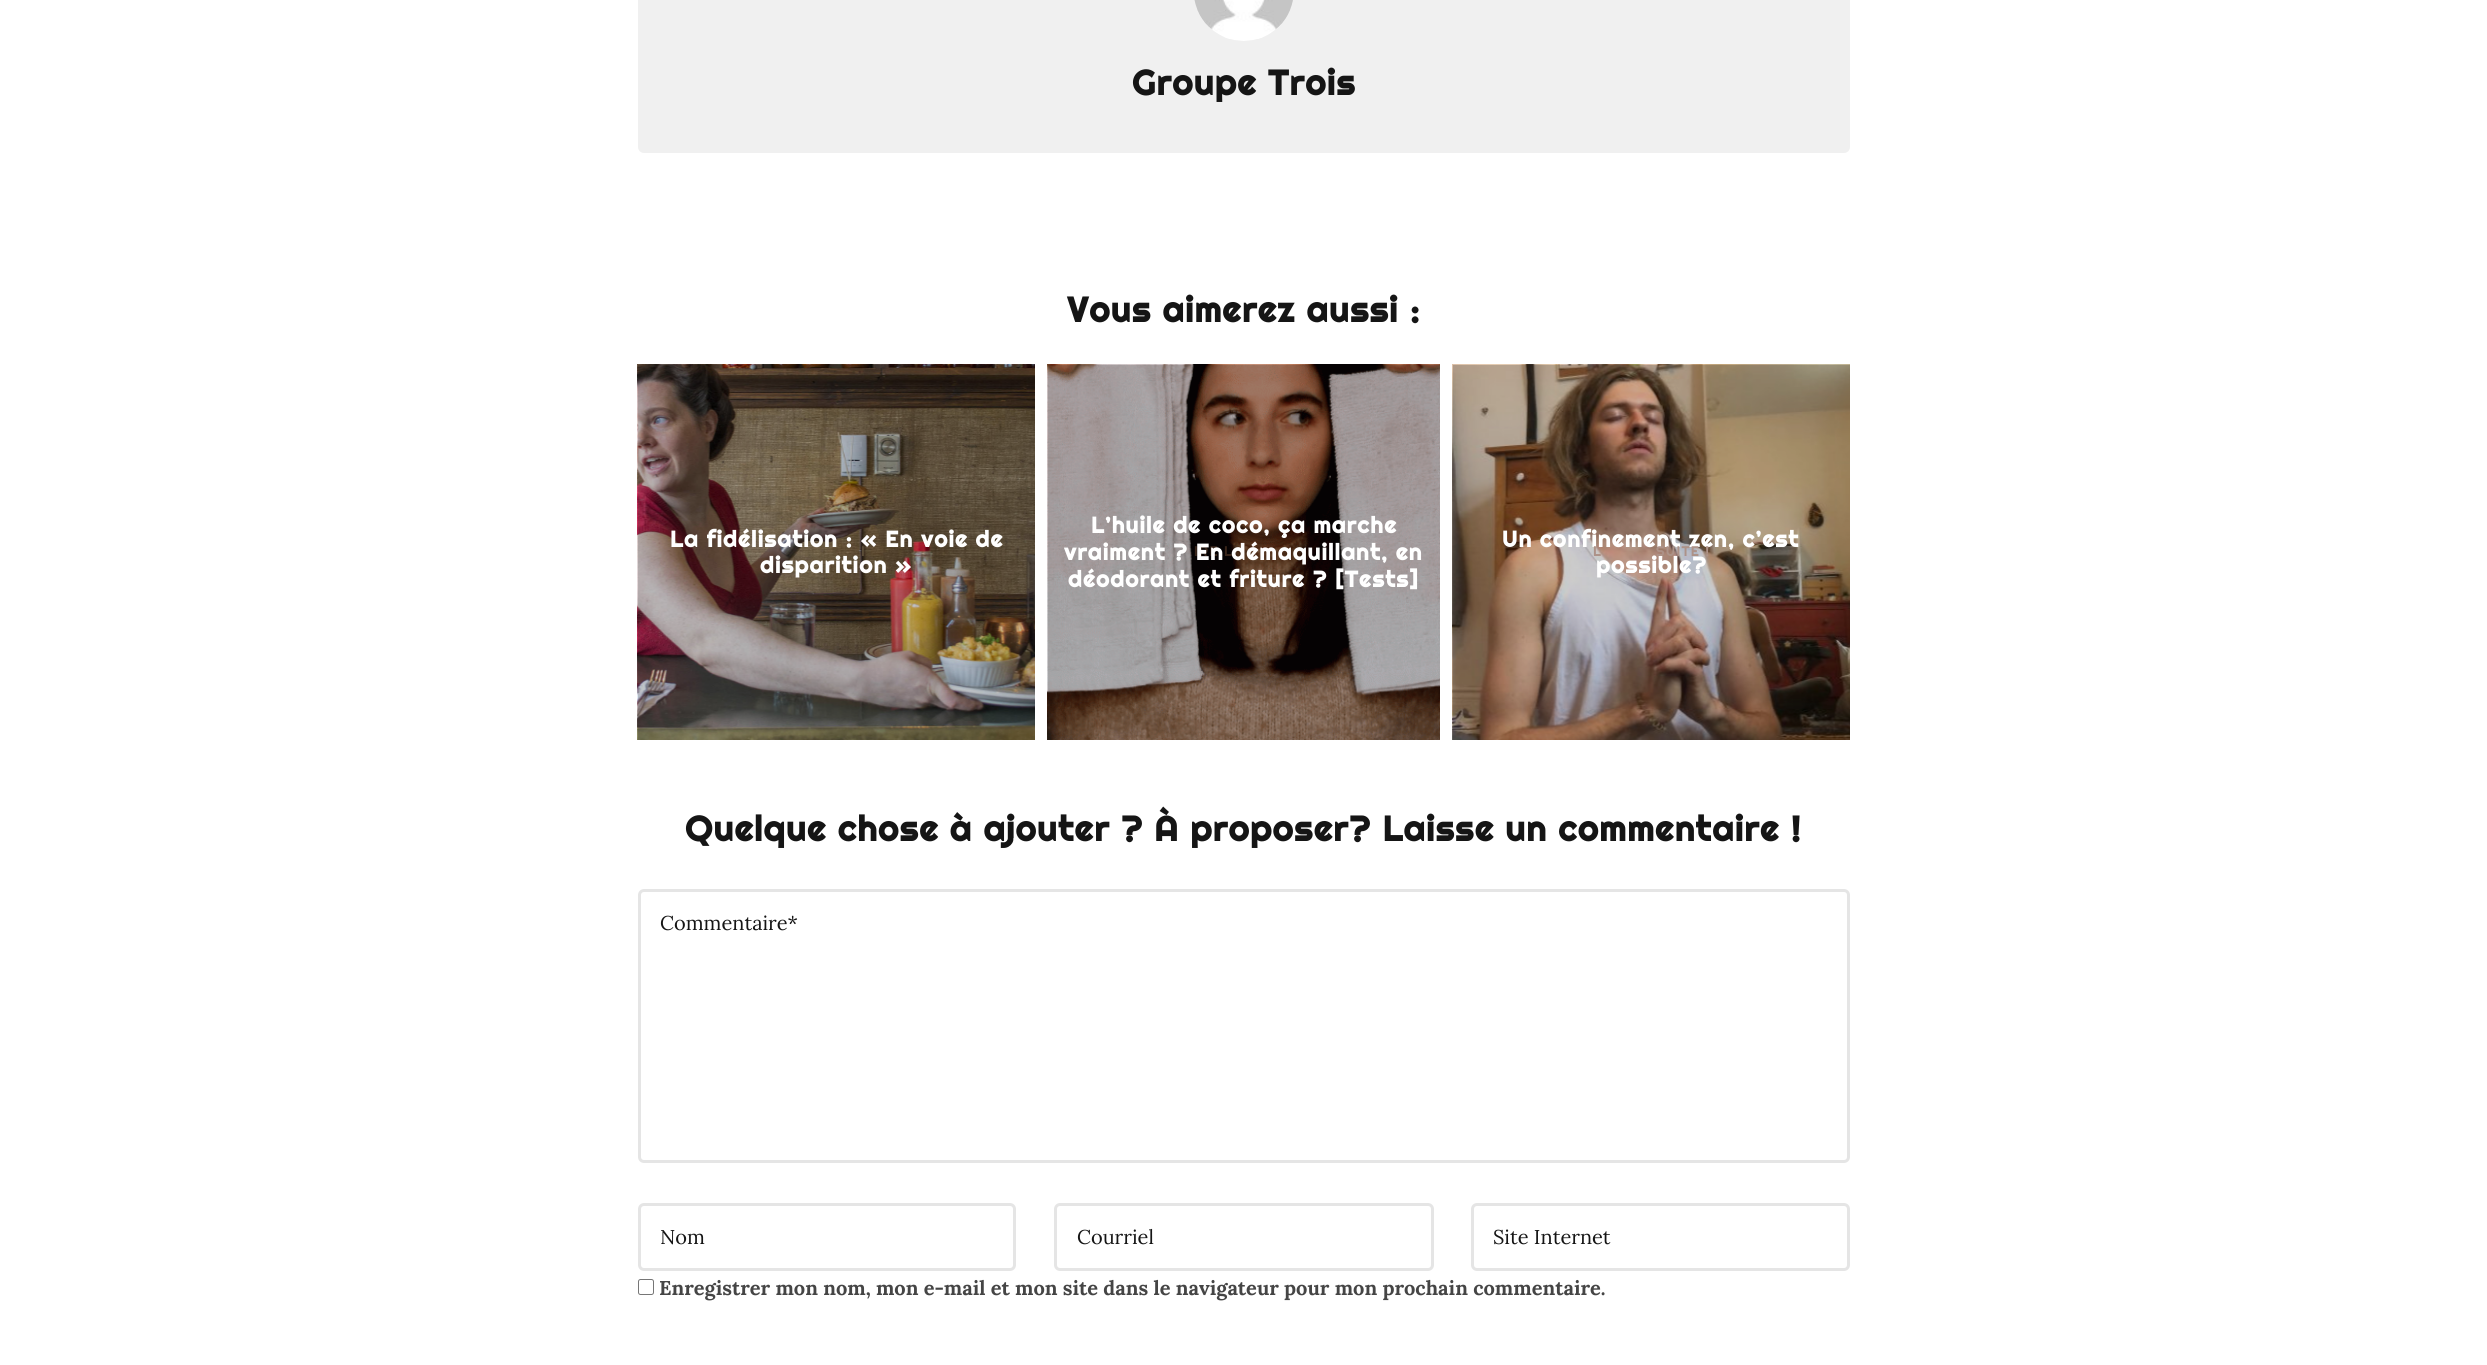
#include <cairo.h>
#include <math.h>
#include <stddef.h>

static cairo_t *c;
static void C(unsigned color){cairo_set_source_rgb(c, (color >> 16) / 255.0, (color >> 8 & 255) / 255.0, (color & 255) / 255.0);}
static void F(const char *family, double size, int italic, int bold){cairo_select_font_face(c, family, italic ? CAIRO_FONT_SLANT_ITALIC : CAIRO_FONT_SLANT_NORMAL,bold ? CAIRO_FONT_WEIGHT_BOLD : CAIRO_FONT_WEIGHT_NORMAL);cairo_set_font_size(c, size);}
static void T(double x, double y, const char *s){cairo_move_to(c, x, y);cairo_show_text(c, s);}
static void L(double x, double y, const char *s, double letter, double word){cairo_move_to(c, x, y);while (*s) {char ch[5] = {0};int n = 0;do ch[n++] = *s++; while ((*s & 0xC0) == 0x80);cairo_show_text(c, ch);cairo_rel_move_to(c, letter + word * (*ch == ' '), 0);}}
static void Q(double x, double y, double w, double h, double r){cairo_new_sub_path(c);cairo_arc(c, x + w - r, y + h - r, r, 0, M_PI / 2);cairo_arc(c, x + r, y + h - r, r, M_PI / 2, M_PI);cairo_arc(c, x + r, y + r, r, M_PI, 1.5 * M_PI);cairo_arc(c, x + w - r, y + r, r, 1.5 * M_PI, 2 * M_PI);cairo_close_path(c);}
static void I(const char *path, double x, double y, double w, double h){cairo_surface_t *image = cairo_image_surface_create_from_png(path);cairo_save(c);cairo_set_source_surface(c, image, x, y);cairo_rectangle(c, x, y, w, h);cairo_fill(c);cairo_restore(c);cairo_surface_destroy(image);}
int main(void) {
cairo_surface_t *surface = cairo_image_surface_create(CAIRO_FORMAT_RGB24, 2487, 1365);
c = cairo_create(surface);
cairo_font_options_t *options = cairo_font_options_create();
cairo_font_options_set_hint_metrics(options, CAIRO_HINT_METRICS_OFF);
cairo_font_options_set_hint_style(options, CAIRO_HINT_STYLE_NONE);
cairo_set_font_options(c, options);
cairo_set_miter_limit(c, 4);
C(0xffffff);
cairo_paint(c);
C(0xf0f0f0);
Q(638,-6,1212,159,6);
cairo_fill(c);
I("1.png",1194,0,99,41);
F("Righteous",35,0,1);
C(0x151515);
L(1132,95,"Groupe Trois",1.25,0);
L(1067,322,"Vous aimerez aussi :",1.25,0);
I("2.png",637,364,398,376);
F("Righteous",22.5,0,1);
C(0xffffff);
L(670,547,"La fidélisation : « En voie de",1.25,0);
L(760,573,"disparition »",1.25,0);
F("Righteous",14,0,0);
C(0x5b4c38);
L(861,556,"I",1.25,0);
I("3.png",1047,364,393,376);
F("Righteous",22.5,0,1);
C(0xffffff);
L(1091,533,"L’huile de coco, ça marche",1.25,0);
F("Righteous",14,0,0);
C(0x39251a);
L(1194,556,"IRE L",1.25,0);
F("Righteous",22.5,0,1);
C(0xffffff);
L(1064,560,"vraiment ? En démaquillant, en",1.25,0);
L(1068,587,"déodorant et friture ? [Tests]",1.25,0);
I("4.png",1452,364,398,376);
L(1502,547,"Un confinement zen, c’est",1.25,0);
L(1596,573,"possible?",1.25,0);
F("Righteous",14,0,0);
C(0xad9288);
L(1593,556,"L",1.25,0);
L(1656,556,"SUITE !",1.25,0);
F("Righteous",35,0,1);
C(0x151515);
L(685,841,"Quelque chose à ajouter ? À proposer? Laisse un commentaire !",1.25,0);
Q(639.5,890.5,1209,271,4.5);
C(0xe5e5e5);
cairo_set_line_width(c,3);
cairo_stroke(c);
F("Lora",20,0,0);
C(0x151515);
T(660,930,"Commentaire*");
Q(639.5,1204.5,375,65,4.5);
C(0xe5e5e5);
cairo_stroke(c);
C(0x151515);
T(660,1244,"Nom");
Q(1055.5,1204.5,377,65,4.5);
C(0xe5e5e5);
cairo_stroke(c);
C(0x151515);
T(1077,1244,"Courriel");
Q(1472.5,1204.5,376,65,4.5);
C(0xe5e5e5);
cairo_stroke(c);
C(0x151515);
T(1493,1244,"Site Internet");
Q(638.5,1279.5,15,15,2);
C(0x767676);
cairo_set_line_width(c,1);
cairo_stroke(c);
F("Lora",20,0,1);
C(0x454545);
T(659,1295,"Enregistrer mon nom, mon e-mail et mon site dans le navigateur pour mon prochain commentaire.");
cairo_surface_write_to_png(surface, "o.png");
cairo_font_options_destroy(options);
cairo_destroy(c);
cairo_surface_destroy(surface);
return 0;
}
